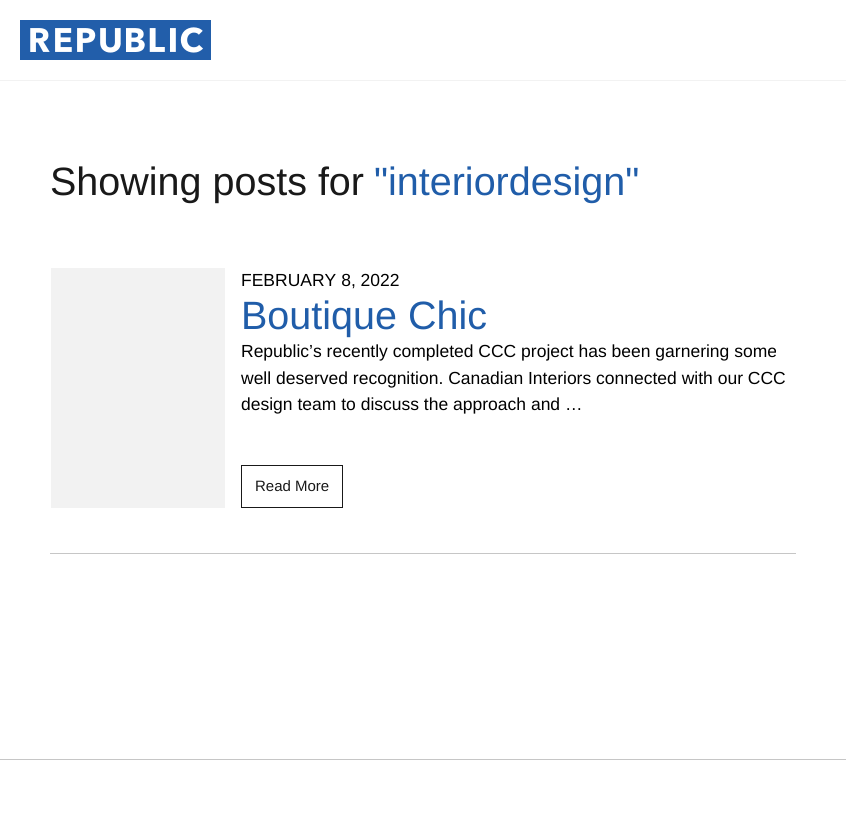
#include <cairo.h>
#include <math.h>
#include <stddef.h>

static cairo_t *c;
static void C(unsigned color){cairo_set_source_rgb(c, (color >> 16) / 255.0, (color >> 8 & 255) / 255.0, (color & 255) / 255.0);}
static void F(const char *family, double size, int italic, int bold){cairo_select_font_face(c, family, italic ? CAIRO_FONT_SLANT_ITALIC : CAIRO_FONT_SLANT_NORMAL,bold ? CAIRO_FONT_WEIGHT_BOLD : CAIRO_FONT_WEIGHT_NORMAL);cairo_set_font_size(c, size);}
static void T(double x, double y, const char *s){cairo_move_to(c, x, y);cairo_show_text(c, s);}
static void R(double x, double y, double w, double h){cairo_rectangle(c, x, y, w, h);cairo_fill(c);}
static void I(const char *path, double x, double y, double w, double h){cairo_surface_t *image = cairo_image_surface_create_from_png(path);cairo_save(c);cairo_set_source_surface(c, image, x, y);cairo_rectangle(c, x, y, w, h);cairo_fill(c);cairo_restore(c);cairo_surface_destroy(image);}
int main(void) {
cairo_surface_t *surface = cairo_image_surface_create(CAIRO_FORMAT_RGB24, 846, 819);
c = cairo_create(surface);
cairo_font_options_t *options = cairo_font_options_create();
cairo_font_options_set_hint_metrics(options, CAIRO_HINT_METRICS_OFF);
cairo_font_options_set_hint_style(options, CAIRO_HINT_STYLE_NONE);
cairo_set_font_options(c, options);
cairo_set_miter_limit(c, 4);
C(0xffffff);
cairo_paint(c);
C(0xf2f2f2);
R(0,80,846,1);
I("1.png",20,20,191,40);
C(0xc6c6c6);
R(0,759,846,1);
F("Liberation Sans",39.5,0,0);
C(0x191919);
T(50,195,"Showing posts for");
C(0x205da9);
T(374,195,"\"interiordesign\"");
C(0xc6c6c6);
R(50,553,746,1);
C(0xf2f2f2);
R(51,268,174,240);
F("Liberation Sans",17.5,0,0);
C(0x000000);
T(241,286,"FEBRUARY 8, 2022");
F("Liberation Sans",39.5,0,0);
C(0x205da9);
T(241,329,"Boutique Chic");
F("Liberation Sans",17.5,0,0);
C(0x000000);
T(241,357,"Republic’s recently completed CCC project has been garnering some");
T(241,384,"well deserved recognition. Canadian Interiors connected with our CCC");
T(241,410,"design team to discuss the approach and …");
cairo_rectangle(c,241.5,465.5,101,42);
C(0x191919);
cairo_set_line_width(c,1);
cairo_stroke(c);
F("Liberation Sans",15,0,0);
T(255,491,"Read More");
cairo_surface_write_to_png(surface, "o.png");
cairo_font_options_destroy(options);
cairo_destroy(c);
cairo_surface_destroy(surface);
return 0;
}
